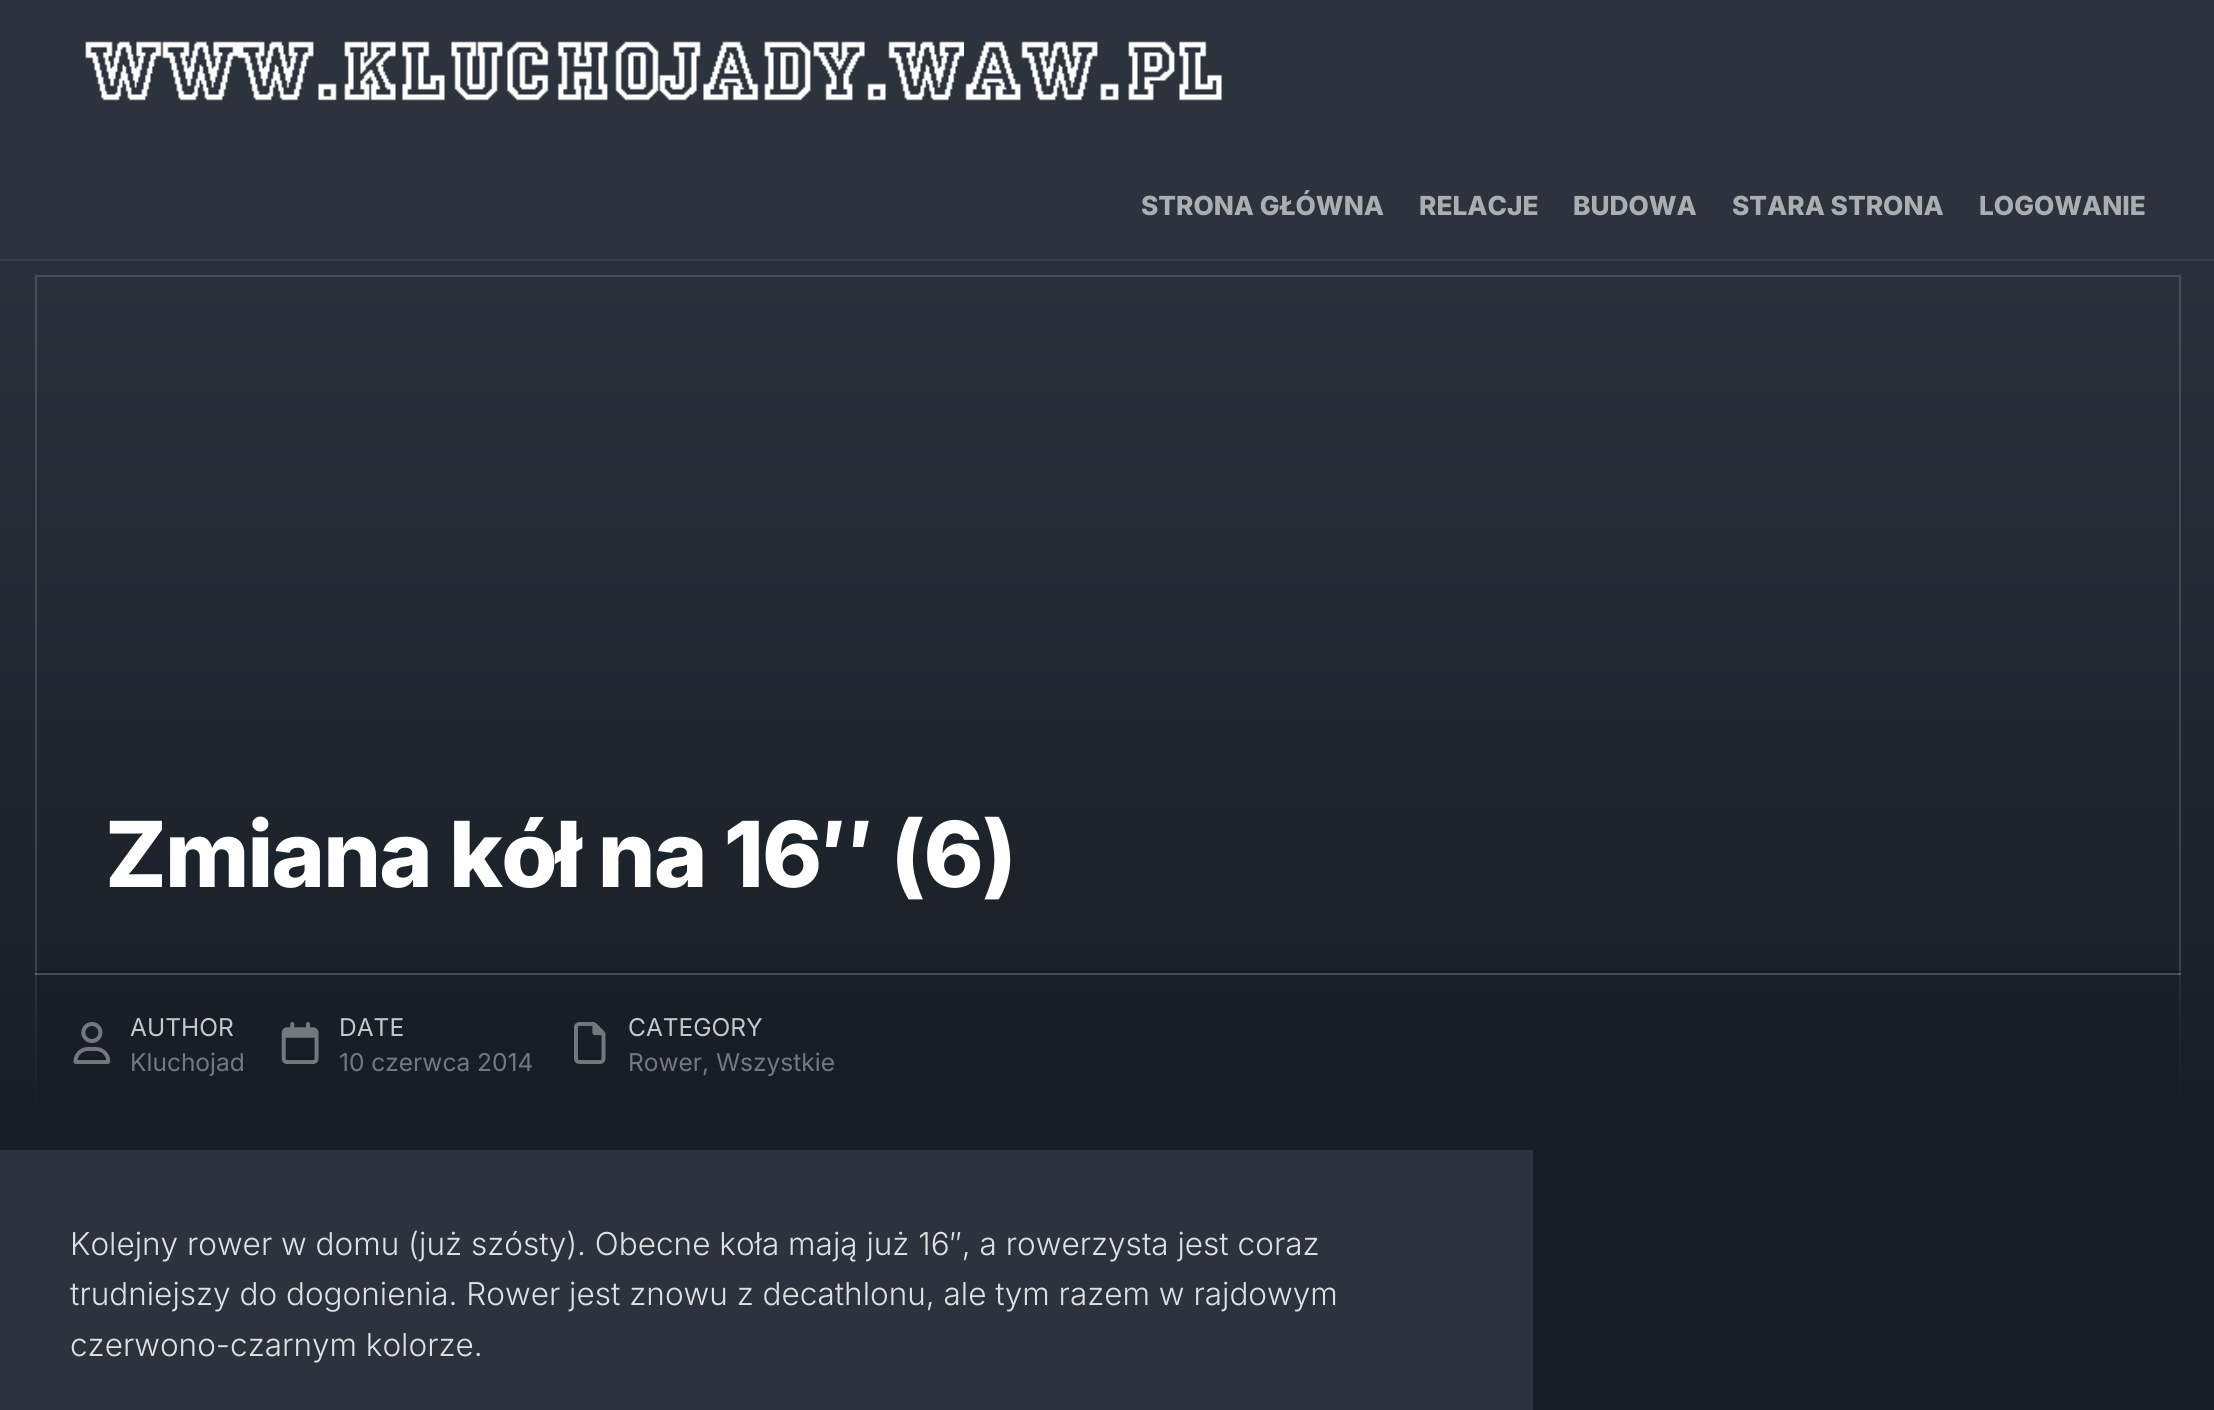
#include <cairo.h>
#include <math.h>
#include <stddef.h>

static cairo_t *c;
static void C(unsigned color){cairo_set_source_rgb(c, (color >> 16) / 255.0, (color >> 8 & 255) / 255.0, (color & 255) / 255.0);}
static void F(const char *family, double size, int italic, int bold){cairo_select_font_face(c, family, italic ? CAIRO_FONT_SLANT_ITALIC : CAIRO_FONT_SLANT_NORMAL,bold ? CAIRO_FONT_WEIGHT_BOLD : CAIRO_FONT_WEIGHT_NORMAL);cairo_set_font_size(c, size);}
static void T(double x, double y, const char *s){cairo_move_to(c, x, y);cairo_show_text(c, s);}
static void L(double x, double y, const char *s, double letter, double word){cairo_move_to(c, x, y);while (*s) {char ch[5] = {0};int n = 0;do ch[n++] = *s++; while ((*s & 0xC0) == 0x80);cairo_show_text(c, ch);cairo_rel_move_to(c, letter + word * (*ch == ' '), 0);}}
static void R(double x, double y, double w, double h){cairo_rectangle(c, x, y, w, h);cairo_fill(c);}
static void I(const char *path, double x, double y, double w, double h){cairo_surface_t *image = cairo_image_surface_create_from_png(path);cairo_save(c);cairo_set_source_surface(c, image, x, y);cairo_rectangle(c, x, y, w, h);cairo_fill(c);cairo_restore(c);cairo_surface_destroy(image);}
int main(void) {
cairo_surface_t *surface = cairo_image_surface_create(CAIRO_FORMAT_RGB24, 2214, 1410);
c = cairo_create(surface);
cairo_font_options_t *options = cairo_font_options_create();
cairo_font_options_set_hint_metrics(options, CAIRO_HINT_METRICS_OFF);
cairo_font_options_set_hint_style(options, CAIRO_HINT_STYLE_NONE);
cairo_set_font_options(c, options);
cairo_set_miter_limit(c, 4);
cairo_pattern_t *gradient;
C(0x2d333c);
cairo_paint(c);
C(0x3a3f48);
R(0,259,2214,2);
I("1.png",85,41,1137,60);
F("Inter ExtraBold",26.25,0,0);
C(0xabadb1);
T(1141,215,"STRONA GŁÓWNA");
T(1419,215,"RELACJE");
T(1573,215,"BUDOWA");
T(1732,215,"STARA STRONA");
T(1979,215,"LOGOWANIE");
gradient = cairo_pattern_create_linear(1108,1150,1108,140);
cairo_pattern_add_color_stop_rgba(gradient,0,0.09,0.114,0.145,1);
cairo_pattern_add_color_stop_rgba(gradient,1,0.176,0.2,0.235,1);
cairo_set_source(c,gradient);
cairo_pattern_destroy(gradient);
R(0,261,2214,889);
cairo_rectangle(c,36,276,2144,838);
cairo_set_source_rgba(c,1,1,1,0.15);
cairo_stroke(c);
F("Inter ExtraBold",91,0,0);
C(0xffffff);
L(105,887,"Zmiana kół na 16″ (6)",-1.8,0);
cairo_set_source_rgba(c,0,0,0,0.2);
cairo_new_path(c);
cairo_move_to(c,35,971);
cairo_line_to(c,35,973);
cairo_line_to(c,2180,973);
cairo_line_to(c,2180,1113);
cairo_line_to(c,2181,1113);
cairo_line_to(c,2181,971);
cairo_close_path(c);
cairo_fill(c);
cairo_set_source_rgba(c,1,1,1,0.2);
R(35,973,2146,2);
gradient = cairo_pattern_create_linear(1108,1115,1108,870);
cairo_pattern_add_color_stop_rgba(gradient,0,0.09,0.114,0.145,1);
cairo_pattern_add_color_stop_rgba(gradient,1,0.09,0.114,0.145,0);
cairo_set_source(c,gradient);
cairo_pattern_destroy(gradient);
R(35,975,2146,140);
I("2.png",73,1022,38,42);
F("Inter",24.5,0,0);
C(0xc5c7c9);
T(130,1036,"AUTHOR");
C(0x74787c);
T(130,1071,"Kluchojad");
I("3.png",281,1022,38,42);
C(0xc5c7c9);
T(339,1036,"DATE");
C(0x74787c);
T(339,1071,"10 czerwca 2014");
I("4.png",574,1022,32,42);
C(0xc5c7c9);
T(628,1036,"CATEGORY");
C(0x74787c);
T(628,1071,"Rower, Wszystkie");
F("Inter Light",31.5,0,0);
C(0xe0e0e2);
T(70,1255,"Kolejny rower w domu (już szósty). Obecne koła mają już 16″, a rowerzysta jest coraz");
T(70,1305,"trudniejszy do dogonienia. Rower jest znowu z decathlonu, ale tym razem w rajdowym");
T(70,1356,"czerwono-czarnym kolorze.");
C(0x171d25);
R(1533,1150,681,260);
cairo_surface_write_to_png(surface, "o.png");
cairo_font_options_destroy(options);
cairo_destroy(c);
cairo_surface_destroy(surface);
return 0;
}
